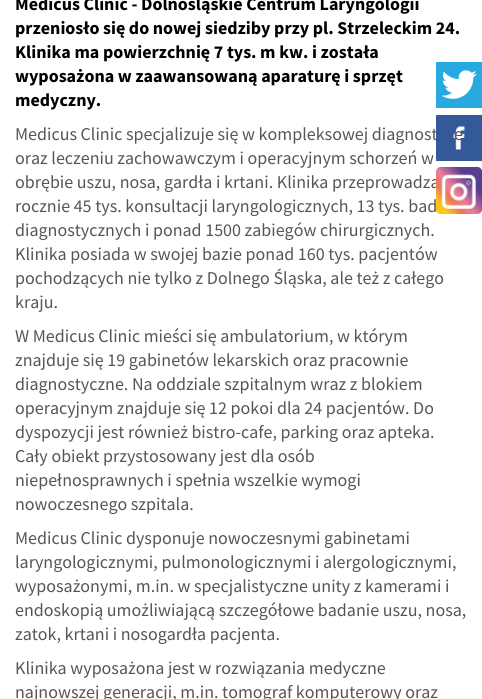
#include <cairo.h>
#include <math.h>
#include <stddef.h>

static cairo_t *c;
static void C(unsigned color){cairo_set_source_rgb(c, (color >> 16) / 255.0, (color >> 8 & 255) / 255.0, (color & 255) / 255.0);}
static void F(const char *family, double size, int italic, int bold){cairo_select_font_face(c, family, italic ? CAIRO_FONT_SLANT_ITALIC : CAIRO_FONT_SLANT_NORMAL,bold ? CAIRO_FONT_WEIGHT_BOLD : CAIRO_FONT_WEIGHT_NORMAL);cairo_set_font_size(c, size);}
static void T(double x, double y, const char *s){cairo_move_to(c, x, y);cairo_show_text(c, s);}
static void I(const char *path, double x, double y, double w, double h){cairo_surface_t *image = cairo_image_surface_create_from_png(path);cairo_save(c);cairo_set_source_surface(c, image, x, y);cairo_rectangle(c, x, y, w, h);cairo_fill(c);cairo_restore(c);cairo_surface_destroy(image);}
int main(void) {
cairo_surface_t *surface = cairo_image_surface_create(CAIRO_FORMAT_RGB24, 482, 699);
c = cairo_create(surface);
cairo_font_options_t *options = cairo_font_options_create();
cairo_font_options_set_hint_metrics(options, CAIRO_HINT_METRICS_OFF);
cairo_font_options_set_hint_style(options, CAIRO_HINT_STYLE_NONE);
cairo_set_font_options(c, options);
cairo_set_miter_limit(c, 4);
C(0xffffff);
cairo_paint(c);
F("Source Sans Pro",18,0,1);
C(0x000000);
T(15,10,"Medicus Clinic - Dolnośląskie Centrum Laryngologii");
T(15,34,"przeniosło się do nowej siedziby przy pl. Strzeleckim 24.");
T(15,58,"Klinika ma powierzchnię 7 tys. m kw. i została");
T(15,82,"wyposażona w zaawansowaną aparaturę i sprzęt");
T(15,106,"medyczny.");
F("Source Sans Pro",18,0,0);
C(0x5b5454);
T(15,140,"Medicus Clinic specjalizuje się w kompleksowej diagnost");
T(454,140,"e");
T(15,164,"oraz leczeniu zachowawczym i operacyjnym schorzeń w");
T(15,188,"obrębie uszu, nosa, gardła i krtani. Klinika przeprowadza");
T(15,212,"rocznie 45 tys. konsultacji laryngologicznych, 13 tys. bad");
T(15,236,"diagnostycznych i ponad 1500 zabiegów chirurgicznych.");
T(15,260,"Klinika posiada w swojej bazie ponad 160 tys. pacjentów");
T(15,284,"pochodzących nie tylko z Dolnego Śląska, ale też z całego");
T(15,308,"kraju.");
T(15,342,"W Medicus Clinic mieści się ambulatorium, w którym");
T(15,366,"znajduje się 19 gabinetów lekarskich oraz pracownie");
T(15,390,"diagnostyczne. Na oddziale szpitalnym wraz z blokiem");
T(15,414,"operacyjnym znajduje się 12 pokoi dla 24 pacjentów. Do");
T(15,438,"dyspozycji jest również bistro-cafe, parking oraz apteka.");
T(15,462,"Cały obiekt przystosowany jest dla osób");
T(15,486,"niepełnosprawnych i spełnia wszelkie wymogi");
T(15,510,"nowoczesnego szpitala.");
T(15,544,"Medicus Clinic dysponuje nowoczesnymi gabinetami");
T(15,568,"laryngologicznymi, pulmonologicznymi i alergologicznymi,");
T(15,592,"wyposażonymi, m.in. w specjalistyczne unity z kamerami i");
T(15,616,"endoskopią umożliwiającą szczegółowe badanie uszu, nosa,");
T(15,640,"zatok, krtani i nosogardła pacjenta.");
T(15,674,"Klinika wyposażona jest w rozwiązania medyczne");
T(15,698,"najnowszej generacji, m.in. tomograf komputerowy oraz");
I("1.png",436,62,46,46);
I("2.png",436,115,46,46);
I("3.png",436,167,46,47);
cairo_surface_write_to_png(surface, "o.png");
cairo_font_options_destroy(options);
cairo_destroy(c);
cairo_surface_destroy(surface);
return 0;
}
